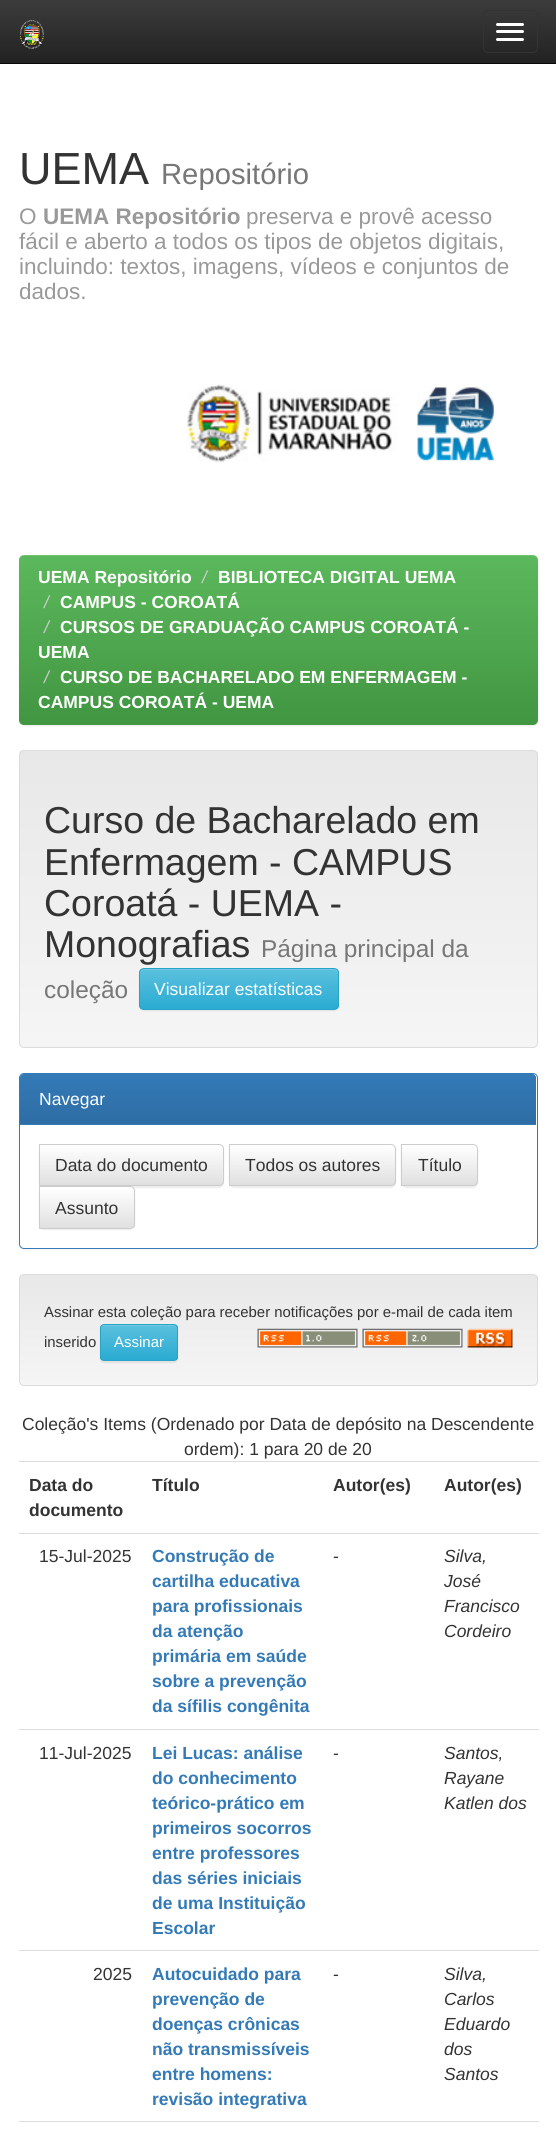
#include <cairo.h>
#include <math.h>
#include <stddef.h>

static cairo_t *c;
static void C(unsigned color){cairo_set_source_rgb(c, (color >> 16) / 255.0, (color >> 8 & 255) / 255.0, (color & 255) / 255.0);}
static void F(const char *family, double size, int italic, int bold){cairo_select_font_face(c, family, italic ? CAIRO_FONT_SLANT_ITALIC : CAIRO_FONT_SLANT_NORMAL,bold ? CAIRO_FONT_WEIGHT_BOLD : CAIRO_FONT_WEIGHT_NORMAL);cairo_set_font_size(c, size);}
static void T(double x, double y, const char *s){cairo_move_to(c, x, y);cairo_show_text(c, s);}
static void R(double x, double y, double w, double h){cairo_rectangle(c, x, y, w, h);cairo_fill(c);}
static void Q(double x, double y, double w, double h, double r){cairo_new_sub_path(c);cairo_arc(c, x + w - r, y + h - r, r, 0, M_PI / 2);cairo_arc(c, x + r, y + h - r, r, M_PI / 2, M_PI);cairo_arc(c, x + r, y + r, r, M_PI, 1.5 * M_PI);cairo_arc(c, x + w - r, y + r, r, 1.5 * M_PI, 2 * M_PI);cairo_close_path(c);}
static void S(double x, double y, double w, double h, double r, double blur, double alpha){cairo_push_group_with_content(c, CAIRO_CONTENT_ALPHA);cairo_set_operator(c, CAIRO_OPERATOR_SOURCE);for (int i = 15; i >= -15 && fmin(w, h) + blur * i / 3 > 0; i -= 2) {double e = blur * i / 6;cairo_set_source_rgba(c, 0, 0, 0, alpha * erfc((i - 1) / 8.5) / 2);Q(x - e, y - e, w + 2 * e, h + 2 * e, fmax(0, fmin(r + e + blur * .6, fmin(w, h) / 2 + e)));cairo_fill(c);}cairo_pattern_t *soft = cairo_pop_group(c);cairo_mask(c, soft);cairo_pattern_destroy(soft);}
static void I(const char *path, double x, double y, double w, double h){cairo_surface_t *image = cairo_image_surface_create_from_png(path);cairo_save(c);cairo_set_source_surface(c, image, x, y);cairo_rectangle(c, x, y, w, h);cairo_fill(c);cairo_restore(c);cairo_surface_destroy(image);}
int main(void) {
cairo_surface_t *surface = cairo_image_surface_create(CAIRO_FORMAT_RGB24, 556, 2131);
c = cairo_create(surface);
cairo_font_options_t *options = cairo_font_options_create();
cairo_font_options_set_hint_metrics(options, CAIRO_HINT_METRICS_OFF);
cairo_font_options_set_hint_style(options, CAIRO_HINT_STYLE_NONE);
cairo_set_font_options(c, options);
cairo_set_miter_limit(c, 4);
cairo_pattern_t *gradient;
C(0xffffff);
cairo_paint(c);
gradient = cairo_pattern_create_linear(278,0,278,63);
cairo_pattern_add_color_stop_rgba(gradient,0,0.235,0.235,0.235,1);
cairo_pattern_add_color_stop_rgba(gradient,1,0.133,0.133,0.133,1);
cairo_set_source(c,gradient);
cairo_pattern_destroy(gradient);
R(0,0,556,63);
C(0x080808);
R(0,63,556,1);
I("1.png",20,20,25,29);
Q(483.5,10.5,54,42,4.5);
C(0x333333);
cairo_set_line_width(c,1);
cairo_stroke(c);
C(0xffffff);
Q(496,23,28,3,1.5);
cairo_fill(c);
Q(496,30,28,3,1.5);
cairo_fill(c);
Q(496,38,28,3,1.5);
cairo_fill(c);
F("Liberation Sans",45,0,0);
C(0x333333);
T(19,184,"UEMA");
F("Liberation Sans",29.25,0,0);
C(0x777777);
T(161,184,"Repositório");
F("Liberation Sans",22.5,0,0);
C(0x999999);
T(19,224,"O");
F("Liberation Sans",22.5,0,1);
T(43,224,"UEMA Repositório");
F("Liberation Sans",22.5,0,0);
T(246,224,"preserva e provê acesso");
T(19,249,"fácil e aberto a todos os tipos de objetos digitais,");
T(19,274,"incluindo: textos, imagens, vídeos e conjuntos de");
T(19,299,"dados.");
I("2.png",187,384,307,79);
C(0x000000);
S(19,556,519,170,5,.5,.07);
gradient = cairo_pattern_create_linear(278,555,278,725);
cairo_pattern_add_color_stop_rgba(gradient,0,0.361,0.722,0.361,1);
cairo_pattern_add_color_stop_rgba(gradient,1,0.255,0.588,0.255,1);
cairo_set_source(c,gradient);
cairo_pattern_destroy(gradient);
Q(19,555,519,170,5);
cairo_fill(c);
cairo_set_source_rgba(c,1,1,1,0.15);
cairo_new_path(c);
cairo_move_to(c,24,556);
cairo_line_to(c,532,556);
cairo_curve_to(c,535,556,538,558,538,561);
cairo_line_to(c,538,560);
cairo_curve_to(c,538,557,536,555,533,555);
cairo_line_to(c,24,555);
cairo_curve_to(c,21,555,19,557,19,560);
cairo_line_to(c,19,561);
cairo_curve_to(c,19,558,21,556,24,556);
cairo_close_path(c);
cairo_fill(c);
F("Liberation Sans",17.5,0,1);
C(0xffffff);
T(38,583,"UEMA Repositório");
F("Liberation Sans",17.5,1,0);
C(0xcccccc);
T(202,583,"/");
F("Liberation Sans",17.5,0,1);
C(0xffffff);
T(218,583,"BIBLIOTECA DIGITAL UEMA");
F("Liberation Sans",17.5,1,0);
C(0xcccccc);
T(44,608,"/");
F("Liberation Sans",17.5,0,1);
C(0xffffff);
T(60,608,"CAMPUS - COROATÁ");
F("Liberation Sans",17.5,1,0);
C(0xcccccc);
T(44,633,"/");
F("Liberation Sans",17.5,0,1);
C(0xffffff);
T(60,633,"CURSOS DE GRADUAÇÃO CAMPUS COROATÁ -");
T(38,658,"UEMA");
F("Liberation Sans",17.5,1,0);
C(0xcccccc);
T(44,683,"/");
F("Liberation Sans",17.5,0,1);
C(0xffffff);
T(60,683,"CURSO DE BACHARELADO EM ENFERMAGEM -");
T(38,708,"CAMPUS COROATÁ - UEMA");
C(0xf5f5f5);
Q(19,750,519,298,5);
cairo_fill(c);
cairo_save(c);
Q(19,750,519,298,5);
cairo_clip(c);
gradient = cairo_pattern_create_linear(278,751,278,1046);
cairo_pattern_add_color_stop_rgba(gradient,0,0.91,0.91,0.91,1);
cairo_pattern_add_color_stop_rgba(gradient,1,0.961,0.961,0.961,1);
cairo_set_source(c,gradient);
cairo_pattern_destroy(gradient);
R(19,751,519,295);
cairo_restore(c);
Q(19.5,750.5,518,297,4.5);
C(0xdcdcdc);
cairo_stroke(c);
F("Liberation Sans",37.5,0,0);
C(0x333333);
T(44,833,"Curso de Bacharelado em");
T(44,875,"Enfermagem - CAMPUS");
T(44,916,"Coroatá - UEMA -");
T(44,957,"Monografias");
F("Liberation Sans",24.4,0,0);
C(0x777777);
T(261,957,"Página principal da");
T(44,998,"coleção");
C(0x000000);
S(139,969,200,42,5,.5,.07);
cairo_save(c);
Q(139,968,200,42,5);
cairo_clip(c);
gradient = cairo_pattern_create_linear(239,969,239,1009);
cairo_pattern_add_color_stop_rgba(gradient,0,0.357,0.753,0.871,1);
cairo_pattern_add_color_stop_rgba(gradient,1,0.165,0.671,0.824,1);
cairo_set_source(c,gradient);
cairo_pattern_destroy(gradient);
R(139,969,200,40);
cairo_restore(c);
C(0x73c9e3);
cairo_new_path(c);
cairo_move_to(c,144,970);
cairo_line_to(c,334,970);
cairo_curve_to(c,336,970,338,972,338,974);
cairo_line_to(c,338,973);
cairo_curve_to(c,338,971,336,969,334,969);
cairo_line_to(c,144,969);
cairo_curve_to(c,142,969,140,971,140,973);
cairo_line_to(c,140,974);
cairo_curve_to(c,140,972,142,970,144,970);
cairo_close_path(c);
cairo_fill(c);
Q(139.5,968.5,199,41,4.5);
C(0x28a4c9);
cairo_stroke(c);
F("Liberation Sans",17.5,0,0);
C(0xffffff);
T(154,995,"Visualizar estatísticas");
C(0x000000);
S(19,1074,519,176,5,1,.05);
C(0xffffff);
Q(19.5,1073.5,518,175,4.5);
cairo_fill_preserve(c);
C(0x337ab7);
cairo_stroke(c);
cairo_new_path(c);
cairo_move_to(c,24,1074);
cairo_line_to(c,532,1074);
cairo_curve_to(c,534,1074,536,1076,536,1078);
cairo_line_to(c,536,1125);
cairo_line_to(c,20,1125);
cairo_line_to(c,20,1078);
cairo_curve_to(c,20,1076,22,1074,24,1074);
cairo_close_path(c);
cairo_fill(c);
gradient = cairo_pattern_create_linear(278,1074,278,1124);
cairo_pattern_add_color_stop_rgba(gradient,0,0.2,0.478,0.718,1);
cairo_pattern_add_color_stop_rgba(gradient,1,0.18,0.427,0.643,1);
cairo_set_source(c,gradient);
cairo_pattern_destroy(gradient);
cairo_new_path(c);
cairo_move_to(c,24,1074);
cairo_line_to(c,532,1074);
cairo_curve_to(c,534,1074,536,1076,536,1078);
cairo_line_to(c,536,1124);
cairo_line_to(c,20,1124);
cairo_line_to(c,20,1078);
cairo_curve_to(c,20,1076,22,1074,24,1074);
cairo_close_path(c);
cairo_fill(c);
C(0xffffff);
T(39,1105,"Navegar");
C(0x000000);
S(39,1145,185,43,5,.5,.07);
cairo_save(c);
cairo_new_path(c);
cairo_move_to(c,39,1144);
cairo_line_to(c,219,1144);
cairo_curve_to(c,222,1144,224,1146,224,1149);
cairo_line_to(c,224,1181);
cairo_curve_to(c,224,1184,222,1186,219,1186);
cairo_line_to(c,39,1186);
cairo_close_path(c);
cairo_clip(c);
gradient = cairo_pattern_create_linear(131,1145,131,1185);
cairo_pattern_add_color_stop_rgba(gradient,0,1,1,1,1);
cairo_pattern_add_color_stop_rgba(gradient,1,0.878,0.878,0.878,1);
cairo_set_source(c,gradient);
cairo_pattern_destroy(gradient);
R(40,1145,184,40);
cairo_restore(c);
cairo_set_source_rgba(c,1,1,1,0.15);
cairo_new_path(c);
cairo_move_to(c,40,1146);
cairo_line_to(c,219,1146);
cairo_curve_to(c,224,1146,222,1159,222,1161);
cairo_line_to(c,222,1184);
cairo_curve_to(c,223,1183,223,1182,223,1181);
cairo_line_to(c,223,1149);
cairo_curve_to(c,223,1147,221,1145,219,1145);
cairo_line_to(c,40,1145);
cairo_close_path(c);
cairo_fill(c);
cairo_new_path(c);
cairo_move_to(c,39.5,1144.5);
cairo_line_to(c,219,1144.5);
cairo_curve_to(c,221.5,1144.5,223.5,1146.5,223.5,1149);
cairo_line_to(c,223.5,1181);
cairo_curve_to(c,223.5,1183.5,221.5,1185.5,219,1185.5);
cairo_line_to(c,39.5,1185.5);
cairo_close_path(c);
C(0xcccccc);
cairo_stroke(c);
C(0x333333);
T(55,1171,"Data do documento");
C(0x000000);
S(229,1145,167,43,5,.5,.07);
cairo_save(c);
cairo_new_path(c);
cairo_move_to(c,229,1144);
cairo_line_to(c,391,1144);
cairo_curve_to(c,394,1144,396,1146,396,1149);
cairo_line_to(c,396,1181);
cairo_curve_to(c,396,1184,394,1186,391,1186);
cairo_line_to(c,229,1186);
cairo_close_path(c);
cairo_clip(c);
gradient = cairo_pattern_create_linear(313,1145,313,1185);
cairo_pattern_add_color_stop_rgba(gradient,0,1,1,1,1);
cairo_pattern_add_color_stop_rgba(gradient,1,0.878,0.878,0.878,1);
cairo_set_source(c,gradient);
cairo_pattern_destroy(gradient);
R(230,1145,166,40);
cairo_restore(c);
cairo_new_path(c);
cairo_move_to(c,229.5,1144.5);
cairo_line_to(c,391,1144.5);
cairo_curve_to(c,393.5,1144.5,395.5,1146.5,395.5,1149);
cairo_line_to(c,395.5,1181);
cairo_curve_to(c,395.5,1183.5,393.5,1185.5,391,1185.5);
cairo_line_to(c,229.5,1185.5);
cairo_close_path(c);
C(0xcccccc);
cairo_stroke(c);
C(0x333333);
T(245,1171,"Todos os autores");
C(0x000000);
S(401,1145,77,43,5,.5,.07);
cairo_save(c);
cairo_new_path(c);
cairo_move_to(c,401,1144);
cairo_line_to(c,473,1144);
cairo_curve_to(c,476,1144,478,1146,478,1149);
cairo_line_to(c,478,1181);
cairo_curve_to(c,478,1184,476,1186,473,1186);
cairo_line_to(c,401,1186);
cairo_close_path(c);
cairo_clip(c);
gradient = cairo_pattern_create_linear(439,1145,439,1185);
cairo_pattern_add_color_stop_rgba(gradient,0,1,1,1,1);
cairo_pattern_add_color_stop_rgba(gradient,1,0.878,0.878,0.878,1);
cairo_set_source(c,gradient);
cairo_pattern_destroy(gradient);
R(402,1145,76,40);
cairo_restore(c);
cairo_new_path(c);
cairo_move_to(c,401.5,1144.5);
cairo_line_to(c,473,1144.5);
cairo_curve_to(c,475.5,1144.5,477.5,1146.5,477.5,1149);
cairo_line_to(c,477.5,1181);
cairo_curve_to(c,477.5,1183.5,475.5,1185.5,473,1185.5);
cairo_line_to(c,401.5,1185.5);
cairo_close_path(c);
C(0xcccccc);
cairo_stroke(c);
C(0x333333);
T(418,1171,"Título");
C(0x000000);
S(39,1188,96,42,5,.5,.07);
C(0xffffff);
cairo_new_path(c);
cairo_move_to(c,39,1186);
cairo_line_to(c,130,1186);
cairo_curve_to(c,133,1186,135,1188,135,1191);
cairo_line_to(c,135,1224);
cairo_curve_to(c,135,1227,133,1229,130,1229);
cairo_line_to(c,39,1229);
cairo_close_path(c);
cairo_fill(c);
cairo_save(c);
cairo_new_path(c);
cairo_move_to(c,39,1186);
cairo_line_to(c,130,1186);
cairo_curve_to(c,133,1186,135,1188,135,1191);
cairo_line_to(c,135,1224);
cairo_curve_to(c,135,1227,133,1229,130,1229);
cairo_line_to(c,39,1229);
cairo_close_path(c);
cairo_clip(c);
gradient = cairo_pattern_create_linear(87,1188,87,1228);
cairo_pattern_add_color_stop_rgba(gradient,0,1,1,1,1);
cairo_pattern_add_color_stop_rgba(gradient,1,0.878,0.878,0.878,1);
cairo_set_source(c,gradient);
cairo_pattern_destroy(gradient);
R(40,1188,95,40);
cairo_restore(c);
cairo_new_path(c);
cairo_move_to(c,39.5,1186.5);
cairo_line_to(c,130,1186.5);
cairo_curve_to(c,132.5,1186.5,134.5,1188.5,134.5,1191);
cairo_line_to(c,134.5,1224);
cairo_curve_to(c,134.5,1226.5,132.5,1228.5,130,1228.5);
cairo_line_to(c,39.5,1228.5);
cairo_close_path(c);
C(0xcccccc);
cairo_stroke(c);
C(0x333333);
T(55,1214,"Assunto");
cairo_save(c);
Q(19,1274,519,112,5);
cairo_clip(c);
gradient = cairo_pattern_create_linear(278,1275,278,1385);
cairo_pattern_add_color_stop_rgba(gradient,0,0.91,0.91,0.91,1);
cairo_pattern_add_color_stop_rgba(gradient,1,0.961,0.961,0.961,1);
cairo_set_source(c,gradient);
cairo_pattern_destroy(gradient);
R(19,1275,519,110);
cairo_restore(c);
Q(19.5,1274.5,518,111,4.5);
C(0xdcdcdc);
cairo_stroke(c);
F("Liberation Sans",14.9,0,0);
C(0x333333);
T(44,1317,"Assinar esta coleção para receber notificações por e-mail de cada item");
T(44,1347,"inserido");
C(0x000000);
S(100,1325,78,38,4,.5,.07);
cairo_save(c);
Q(100,1324,78,37,4);
cairo_clip(c);
gradient = cairo_pattern_create_linear(139,1325,139,1360);
cairo_pattern_add_color_stop_rgba(gradient,0,0.357,0.753,0.871,1);
cairo_pattern_add_color_stop_rgba(gradient,1,0.165,0.671,0.824,1);
cairo_set_source(c,gradient);
cairo_pattern_destroy(gradient);
R(100,1325,78,35);
cairo_restore(c);
C(0x73c9e3);
cairo_new_path(c);
cairo_move_to(c,104,1326);
cairo_line_to(c,174,1326);
cairo_curve_to(c,175,1326,176,1327,176,1329);
cairo_curve_to(c,176,1322,167,1325,162,1325);
cairo_line_to(c,115,1325);
cairo_curve_to(c,110,1325,101,1322,101,1329);
cairo_curve_to(c,101,1327,102,1326,104,1326);
cairo_close_path(c);
cairo_fill(c);
Q(100.5,1324.5,77,36,3.5);
C(0x28a4c9);
cairo_stroke(c);
F("Liberation Sans",15,0,0);
C(0xffffff);
T(114,1347,"Assinar");
I("3.png",257,1328,101,20);
I("4.png",362,1328,101,20);
I("5.png",467,1328,46,20);
F("Liberation Sans",17.5,0,0);
C(0x333333);
T(22,1430,"Coleção's Items (Ordenado por Data de depósito na Descendente");
T(184,1455,"ordem): 1 para 20 de 20");
F("Liberation Sans",17.5,0,1);
T(29,1491,"Data do");
T(29,1516,"documento");
T(152,1491,"Título");
T(333,1491,"Autor(es)");
C(0xdddddd);
R(19,1461,520,1);
C(0x333333);
T(444,1491,"Autor(es)");
F("Liberation Sans",17.5,0,0);
T(39,1562,"15-Jul-2025");
F("Liberation Sans",17.5,0,1);
C(0x337ab7);
T(152,1562,"Construção de");
T(152,1587,"cartilha educativa");
T(152,1612,"para profissionais");
T(152,1637,"da atenção");
T(152,1662,"primária em saúde");
T(152,1687,"sobre a prevenção");
T(152,1712,"da sífilis congênita");
F("Liberation Sans",17.5,0,0);
C(0x333333);
T(333,1562,"-");
C(0xdddddd);
R(19,1533,520,1);
F("Liberation Sans",17.5,1,0);
C(0x333333);
T(444,1562,"Silva,");
T(444,1587,"José");
T(444,1612,"Francisco");
T(444,1637,"Cordeiro");
F("Liberation Sans",17.5,0,0);
T(39,1759,"11-Jul-2025");
F("Liberation Sans",17.5,0,1);
C(0x337ab7);
T(152,1759,"Lei Lucas: análise");
T(152,1784,"do conhecimento");
T(152,1809,"teórico-prático em");
T(152,1834,"primeiros socorros");
T(152,1859,"entre professores");
T(152,1884,"das séries iniciais");
T(152,1909,"de uma Instituição");
T(152,1934,"Escolar");
F("Liberation Sans",17.5,0,0);
C(0x333333);
T(333,1759,"-");
C(0xdddddd);
R(19,1729,520,1);
F("Liberation Sans",17.5,1,0);
C(0x333333);
T(444,1759,"Santos,");
T(444,1784,"Rayane");
T(444,1809,"Katlen dos");
F("Liberation Sans",17.5,0,0);
T(93,1980,"2025");
F("Liberation Sans",17.5,0,1);
C(0x337ab7);
T(152,1980,"Autocuidado para");
T(152,2005,"prevenção de");
T(152,2030,"doenças crônicas");
T(152,2055,"não transmissíveis");
T(152,2080,"entre homens:");
T(152,2105,"revisão integrativa");
F("Liberation Sans",17.5,0,0);
C(0x333333);
T(333,1980,"-");
C(0xdddddd);
R(19,1950,520,1);
F("Liberation Sans",17.5,1,0);
C(0x333333);
T(444,1980,"Silva,");
T(444,2005,"Carlos");
T(444,2030,"Eduardo");
T(444,2055,"dos");
T(444,2080,"Santos");
C(0xdddddd);
R(19,2121,520,1);
cairo_surface_write_to_png(surface, "o.png");
cairo_font_options_destroy(options);
cairo_destroy(c);
cairo_surface_destroy(surface);
return 0;
}
